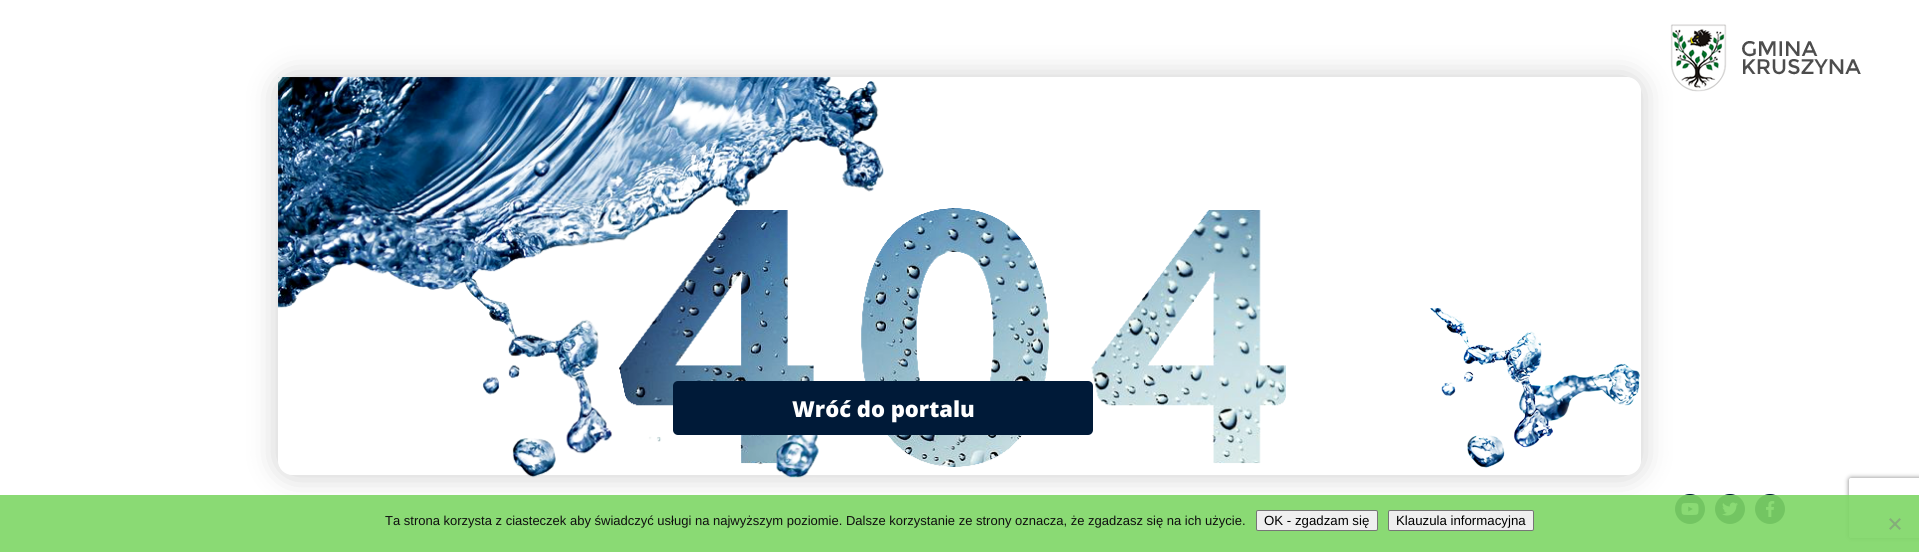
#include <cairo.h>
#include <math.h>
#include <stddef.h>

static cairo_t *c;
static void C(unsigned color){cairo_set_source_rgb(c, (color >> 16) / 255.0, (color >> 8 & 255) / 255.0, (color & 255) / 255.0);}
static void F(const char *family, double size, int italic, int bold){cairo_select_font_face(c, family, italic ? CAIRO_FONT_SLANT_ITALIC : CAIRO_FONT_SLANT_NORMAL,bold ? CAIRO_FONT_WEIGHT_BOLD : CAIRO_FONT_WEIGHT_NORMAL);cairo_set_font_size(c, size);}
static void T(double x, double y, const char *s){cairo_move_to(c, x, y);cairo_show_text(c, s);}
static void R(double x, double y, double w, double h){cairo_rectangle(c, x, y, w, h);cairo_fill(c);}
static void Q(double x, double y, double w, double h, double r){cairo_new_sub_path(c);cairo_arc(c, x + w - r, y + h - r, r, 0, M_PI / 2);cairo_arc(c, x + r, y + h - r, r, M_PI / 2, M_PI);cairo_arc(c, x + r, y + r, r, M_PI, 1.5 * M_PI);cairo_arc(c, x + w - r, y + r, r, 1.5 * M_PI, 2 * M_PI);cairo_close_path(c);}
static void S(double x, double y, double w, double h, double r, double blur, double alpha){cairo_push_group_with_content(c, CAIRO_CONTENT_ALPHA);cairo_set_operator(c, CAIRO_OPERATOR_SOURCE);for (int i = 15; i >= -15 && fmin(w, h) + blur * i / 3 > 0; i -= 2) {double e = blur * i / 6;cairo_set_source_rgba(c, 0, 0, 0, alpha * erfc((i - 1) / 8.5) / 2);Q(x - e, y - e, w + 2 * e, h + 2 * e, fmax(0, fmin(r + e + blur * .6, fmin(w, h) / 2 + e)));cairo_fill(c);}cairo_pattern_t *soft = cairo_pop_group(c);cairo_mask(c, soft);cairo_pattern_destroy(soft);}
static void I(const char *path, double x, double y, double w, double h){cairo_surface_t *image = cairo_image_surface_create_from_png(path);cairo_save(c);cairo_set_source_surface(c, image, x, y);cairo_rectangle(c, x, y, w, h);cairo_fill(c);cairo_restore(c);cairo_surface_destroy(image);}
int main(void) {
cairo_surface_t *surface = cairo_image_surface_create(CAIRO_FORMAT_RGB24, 1919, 552);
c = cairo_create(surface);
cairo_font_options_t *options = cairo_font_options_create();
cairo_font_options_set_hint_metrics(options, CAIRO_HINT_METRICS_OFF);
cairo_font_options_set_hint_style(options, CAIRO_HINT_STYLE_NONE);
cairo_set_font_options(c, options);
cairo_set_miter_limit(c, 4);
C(0xffffff);
cairo_paint(c);
I("1.png",1670,24,191,68);
cairo_save(c);
cairo_set_fill_rule(c,CAIRO_FILL_RULE_EVEN_ODD);
cairo_new_path(c);
cairo_move_to(c,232,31);
cairo_line_to(c,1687,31);
cairo_line_to(c,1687,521);
cairo_line_to(c,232,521);
cairo_close_path(c);
cairo_move_to(c,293,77);
cairo_line_to(c,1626,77);
cairo_curve_to(c,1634.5,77,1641,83.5,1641,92);
cairo_line_to(c,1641,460);
cairo_curve_to(c,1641,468.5,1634.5,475,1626,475);
cairo_line_to(c,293,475);
cairo_curve_to(c,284.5,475,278,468.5,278,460);
cairo_line_to(c,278,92);
cairo_curve_to(c,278,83.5,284.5,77,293,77);
cairo_close_path(c);
cairo_clip(c);
C(0x282828);
S(278,77,1363,398,15,15,.24);
cairo_restore(c);
I("3.png",619,208,667,259);
I("2.png",278,77,606,401);
I("4.png",1430,308,210,160);
C(0x001a38);
Q(673,381,420,54,5);
cairo_fill(c);
F("Open Sans ExtraBold",22,0,0);
C(0xffffff);
T(792,417,"Wróć do portalu");
C(0x001a38);
cairo_new_path(c);
cairo_arc(c,1690,509,15,0,2 * M_PI);
cairo_fill(c);
I("5.png",1681,503,18,12);
cairo_arc(c,1730,509,15,0,2 * M_PI);
cairo_fill(c);
I("6.png",1722,502,16,14);
cairo_arc(c,1770,509,15,0,2 * M_PI);
cairo_fill(c);
I("7.png",1766,501,9,16);
cairo_save(c);
cairo_set_fill_rule(c,CAIRO_FILL_RULE_EVEN_ODD);
cairo_new_path(c);
cairo_move_to(c,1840,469);
cairo_line_to(c,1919,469);
cairo_line_to(c,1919,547);
cairo_line_to(c,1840,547);
cairo_close_path(c);
cairo_move_to(c,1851,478);
cairo_line_to(c,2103,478);
cairo_curve_to(c,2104,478,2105,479,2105,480);
cairo_line_to(c,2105,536);
cairo_curve_to(c,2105,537,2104,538,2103,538);
cairo_line_to(c,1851,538);
cairo_curve_to(c,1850,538,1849,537,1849,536);
cairo_line_to(c,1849,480);
cairo_curve_to(c,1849,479,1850,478,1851,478);
cairo_close_path(c);
cairo_clip(c);
C(0x808080);
S(1849,478,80,60,2,2.5,1);
cairo_restore(c);
cairo_set_source_rgba(c,0.494,0.839,0.4,0.91);
R(0,495,1919,57);
F("Liberation Sans",13,0,0);
C(0x0f0f0f);
T(385,525,"Ta strona korzysta z ciasteczek aby świadczyć usługi na najwyższym poziomie. Dalsze korzystanie ze strony oznacza, że zgadzasz się na ich użycie.");
C(0xefefef);
Q(1256.5,510.5,121,20,1.5);
cairo_fill_preserve(c);
C(0x767676);
cairo_set_line_width(c,1);
cairo_stroke(c);
F("Liberation Sans",13.25,0,0);
C(0x000000);
T(1264,525,"OK - zgadzam się");
C(0xefefef);
Q(1388.5,510.5,145,20,1.5);
cairo_fill_preserve(c);
C(0x767676);
cairo_stroke(c);
C(0x000000);
T(1396,525,"Klauzula informacyjna");
C(0x85ad7a);
cairo_new_path(c);
cairo_move_to(c,1899.5,518);
cairo_line_to(c,1901,519.5);
cairo_line_to(c,1890.5,530);
cairo_line_to(c,1889,528.5);
cairo_close_path(c);
cairo_fill(c);
cairo_new_path(c);
cairo_move_to(c,1889,519.5);
cairo_line_to(c,1890.5,518);
cairo_line_to(c,1901,528.5);
cairo_line_to(c,1899.5,530);
cairo_close_path(c);
cairo_fill(c);
cairo_surface_write_to_png(surface, "o.png");
cairo_font_options_destroy(options);
cairo_destroy(c);
cairo_surface_destroy(surface);
return 0;
}
